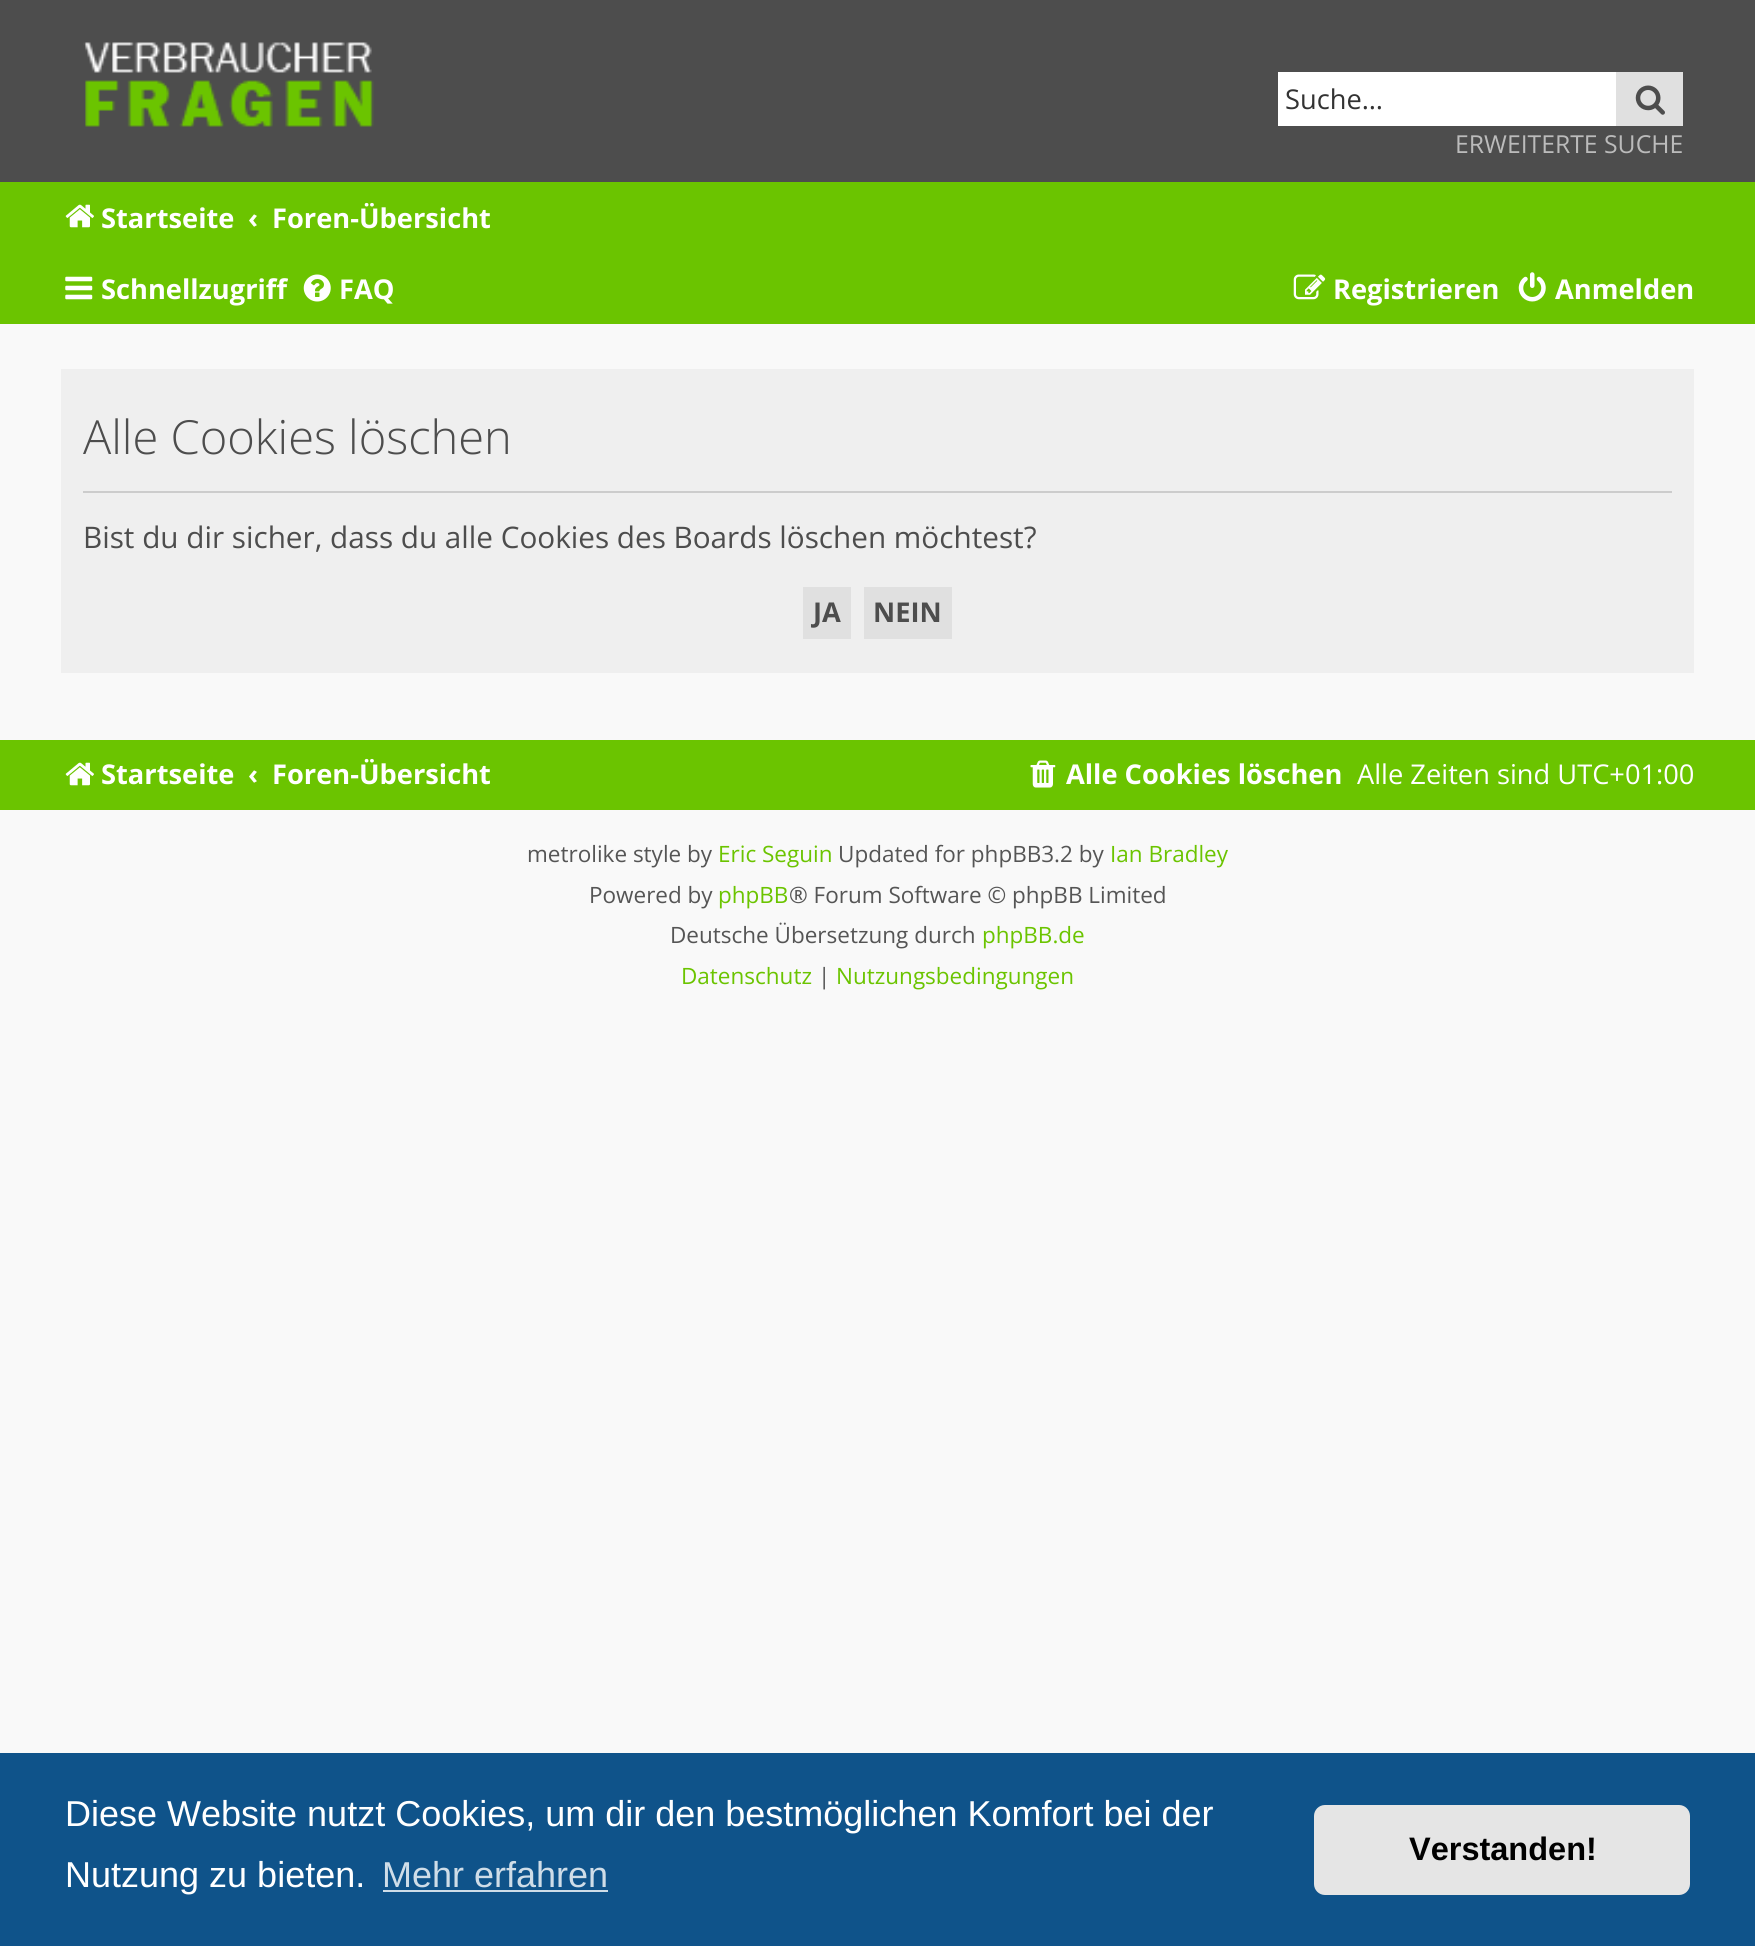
#include <cairo.h>
#include <math.h>
#include <stddef.h>

static cairo_t *c;
static void C(unsigned color){cairo_set_source_rgb(c, (color >> 16) / 255.0, (color >> 8 & 255) / 255.0, (color & 255) / 255.0);}
static void F(const char *family, double size, int italic, int bold){cairo_select_font_face(c, family, italic ? CAIRO_FONT_SLANT_ITALIC : CAIRO_FONT_SLANT_NORMAL,bold ? CAIRO_FONT_WEIGHT_BOLD : CAIRO_FONT_WEIGHT_NORMAL);cairo_set_font_size(c, size);}
static void T(double x, double y, const char *s){cairo_move_to(c, x, y);cairo_show_text(c, s);}
static void R(double x, double y, double w, double h){cairo_rectangle(c, x, y, w, h);cairo_fill(c);}
static void Q(double x, double y, double w, double h, double r){cairo_new_sub_path(c);cairo_arc(c, x + w - r, y + h - r, r, 0, M_PI / 2);cairo_arc(c, x + r, y + h - r, r, M_PI / 2, M_PI);cairo_arc(c, x + r, y + r, r, M_PI, 1.5 * M_PI);cairo_arc(c, x + w - r, y + r, r, 1.5 * M_PI, 2 * M_PI);cairo_close_path(c);}
static void I(const char *path, double x, double y, double w, double h){cairo_surface_t *image = cairo_image_surface_create_from_png(path);cairo_save(c);cairo_set_source_surface(c, image, x, y);cairo_rectangle(c, x, y, w, h);cairo_fill(c);cairo_restore(c);cairo_surface_destroy(image);}
int main(void) {
cairo_surface_t *surface = cairo_image_surface_create(CAIRO_FORMAT_RGB24, 1755, 1946);
c = cairo_create(surface);
cairo_font_options_t *options = cairo_font_options_create();
cairo_font_options_set_hint_metrics(options, CAIRO_HINT_METRICS_OFF);
cairo_font_options_set_hint_style(options, CAIRO_HINT_STYLE_NONE);
cairo_set_font_options(c, options);
cairo_set_miter_limit(c, 4);
C(0xf9f9f9);
cairo_paint(c);
C(0x4d4d4d);
R(0,0,1755,182);
I("1.png",83,42,291,85);
C(0xffffff);
R(1278,72,338,54);
F("Open Sans",27.25,0,0);
C(0x333333);
T(1285,109,"Suche…");
C(0xe0e0e0);
R(1616,72,67,54);
I("2.png",1635,85,30,30);
F("Open Sans",24.75,0,0);
C(0xbbbbbb);
T(1455,153,"ERWEITERTE SUCHE");
C(0x6bc400);
R(0,182,1755,142);
I("3.png",65,204,29,24);
F("Open Sans",27.25,0,1);
C(0xffffff);
T(101,228,"Startseite");
T(248,228,"‹");
T(272,228,"Foren-Übersicht");
I("4.png",65,276,28,24);
T(101,299,"Schnellzugriff");
I("5.png",303,274,28,28);
T(339,299,"FAQ");
I("6.png",1293,274,33,26);
T(1333,299,"Registrieren");
I("7.png",1518,272,28,30);
T(1555,299,"Anmelden");
C(0xefefef);
R(61,369,1633,304);
C(0xcccccc);
R(83,491,1589,2);
F("Open Sans Light",47,0,0);
C(0x4d4d4d);
T(83,454,"Alle Cookies löschen");
F("Open Sans",29.7,0,0);
T(83,548,"Bist du dir sicher, dass du alle Cookies des Boards löschen möchtest?");
C(0xe0e0e0);
R(803,587,48,52);
F("Open Sans",27.25,0,1);
C(0x4d4d4d);
T(813,622,"JA");
C(0xe0e0e0);
R(864,587,88,52);
C(0x4d4d4d);
T(873,622,"NEIN");
C(0x6bc400);
R(0,740,1755,70);
I("3.png",65,762,29,24);
C(0xffffff);
T(101,784,"Startseite");
T(248,784,"‹");
T(272,784,"Foren-Übersicht");
I("8.png",1030,760,26,28);
T(1066,784,"Alle Cookies löschen");
F("Open Sans",27.25,0,0);
T(1357,784,"Alle Zeiten sind UTC+01:00");
F("Open Sans",22.5,0,0);
C(0x555555);
T(527,862,"metrolike style by");
C(0x6bc400);
T(718,862,"Eric Seguin");
C(0x555555);
T(838,862,"Updated for phpBB3.2 by");
C(0x6bc400);
T(1110,862,"Ian Bradley");
C(0x555555);
T(589,903,"Powered by");
C(0x6bc400);
T(718,903,"phpBB");
C(0x555555);
T(789,903,"® Forum Software © phpBB Limited");
T(670,943,"Deutsche Übersetzung durch");
C(0x6bc400);
T(982,943,"phpBB.de");
T(681,984,"Datenschutz");
C(0x555555);
T(818,984,"|");
C(0x6bc400);
T(836,984,"Nutzungsbedingungen");
C(0x0f538a);
R(0,1753,1755,193);
F("Liberation Sans",36,0,0);
C(0xffffff);
T(65,1826,"Diese Website nutzt Cookies, um dir den bestmöglichen Komfort bei der");
T(65,1887,"Nutzung zu bieten.");
C(0xcfdde8);
T(382,1887,"Mehr erfahren");
R(383,1890,225,2);
C(0xe5e5e5);
Q(1314,1805,376,90,11);
cairo_fill(c);
F("Liberation Sans",32.5,0,1);
C(0x000000);
T(1409,1860,"Verstanden!");
cairo_surface_write_to_png(surface, "o.png");
cairo_font_options_destroy(options);
cairo_destroy(c);
cairo_surface_destroy(surface);
return 0;
}
